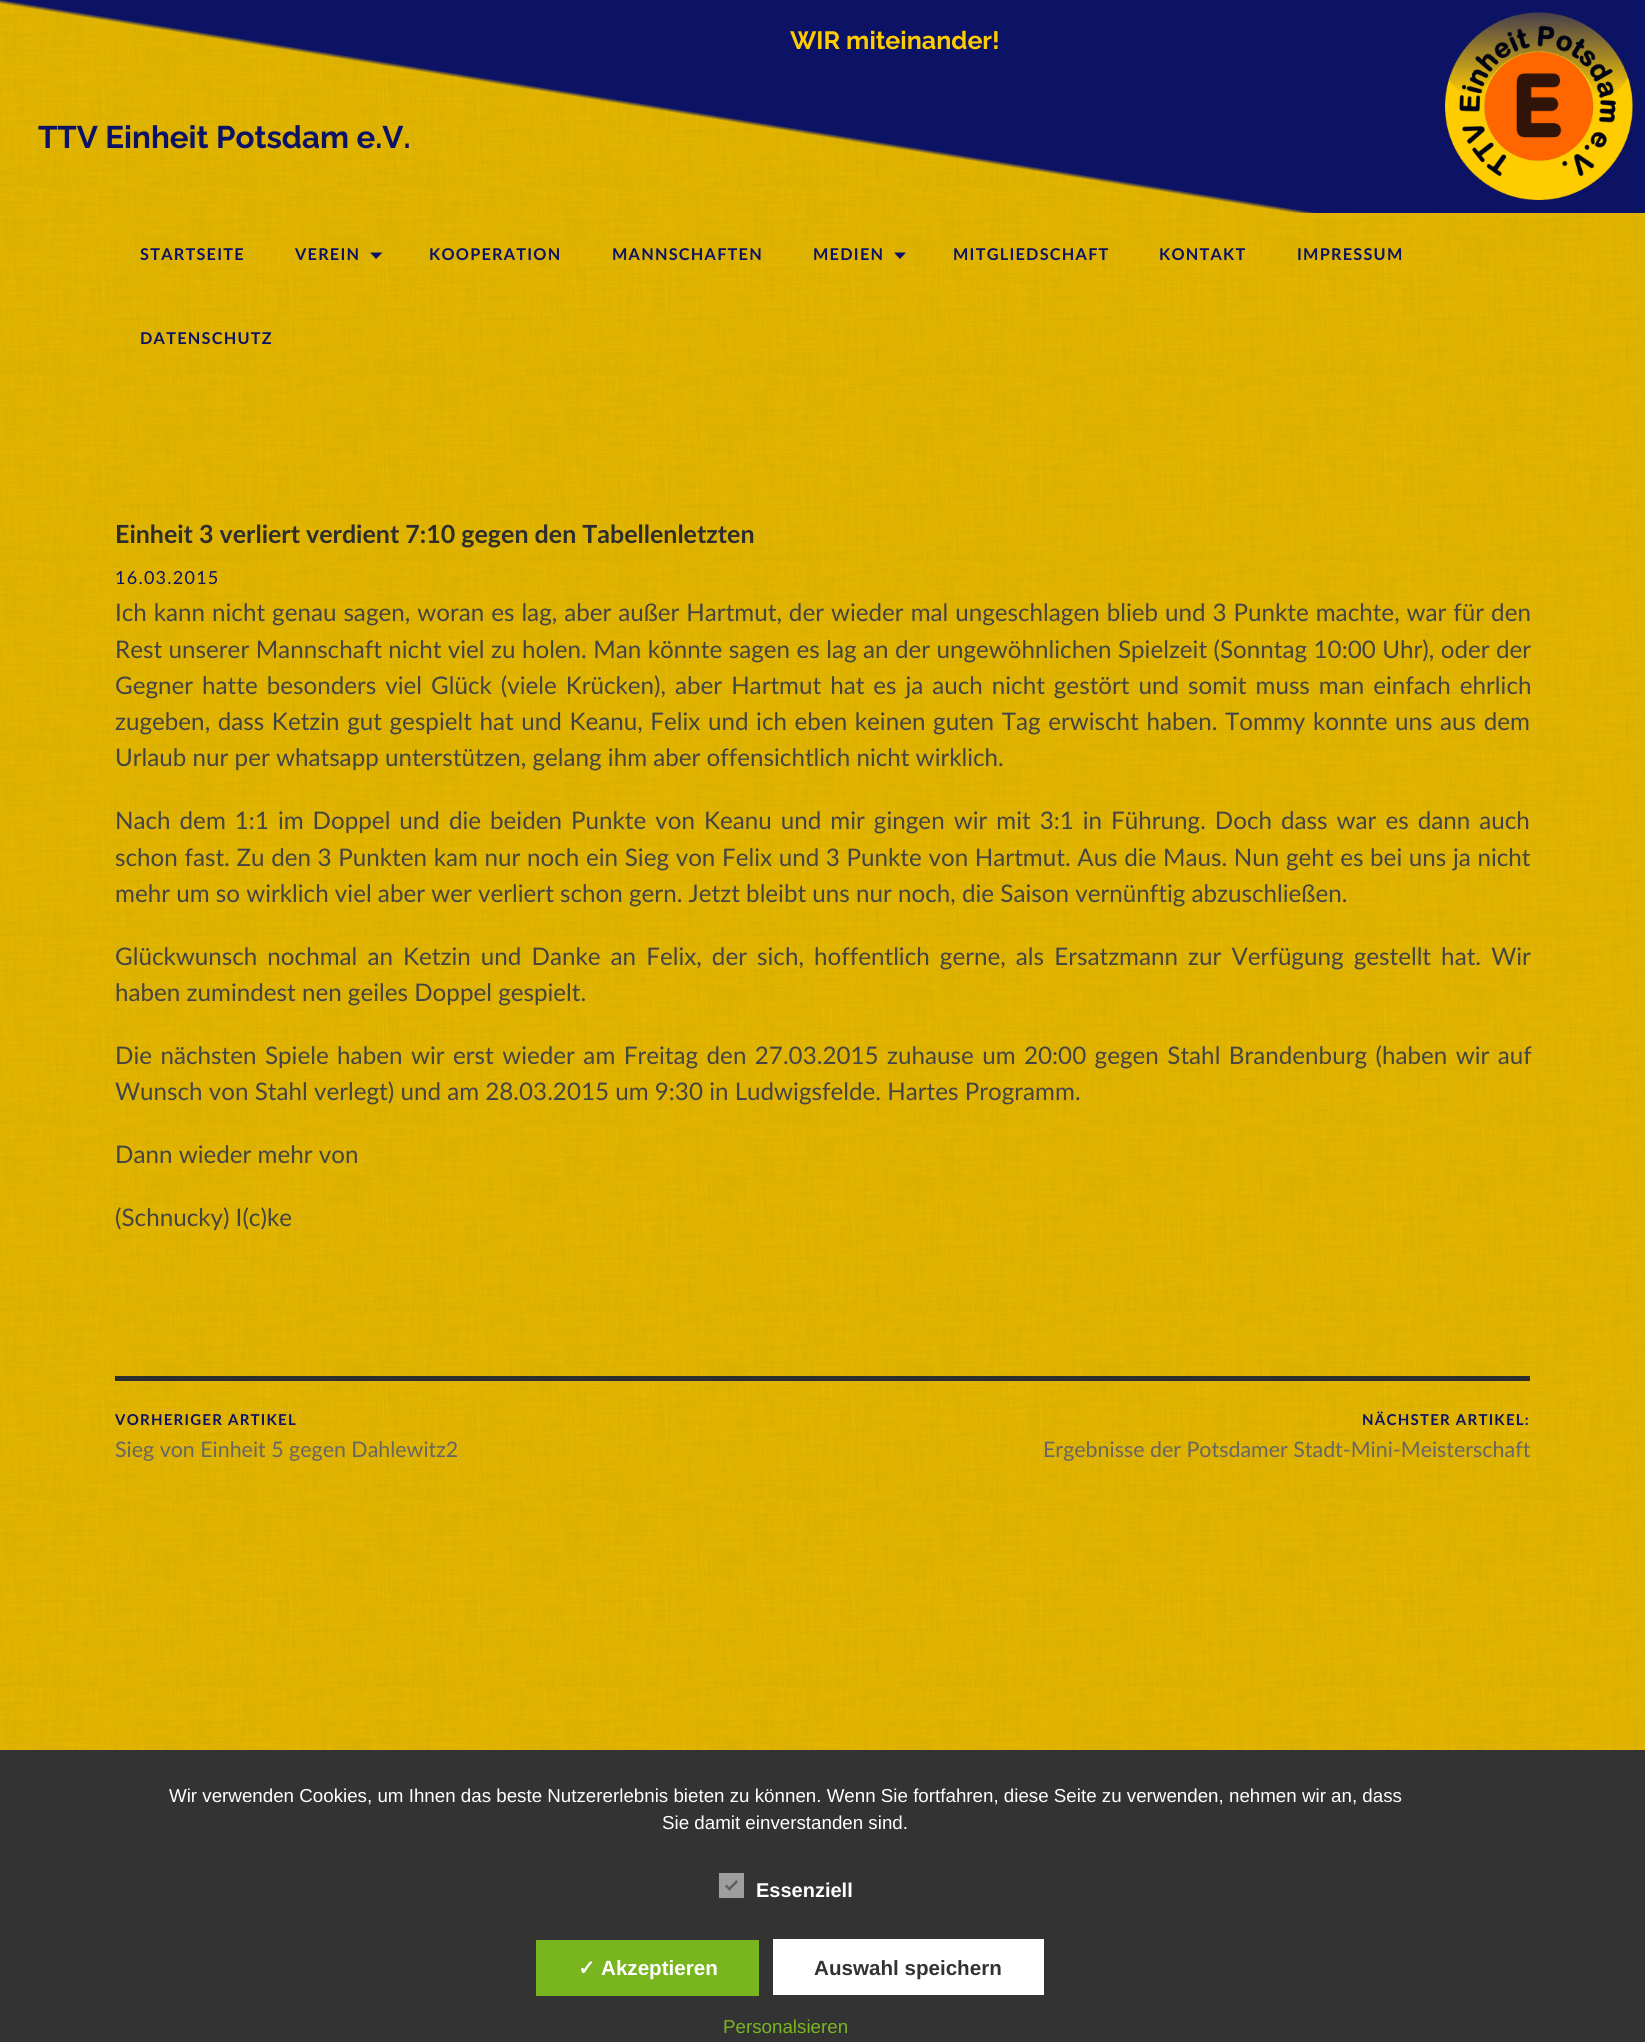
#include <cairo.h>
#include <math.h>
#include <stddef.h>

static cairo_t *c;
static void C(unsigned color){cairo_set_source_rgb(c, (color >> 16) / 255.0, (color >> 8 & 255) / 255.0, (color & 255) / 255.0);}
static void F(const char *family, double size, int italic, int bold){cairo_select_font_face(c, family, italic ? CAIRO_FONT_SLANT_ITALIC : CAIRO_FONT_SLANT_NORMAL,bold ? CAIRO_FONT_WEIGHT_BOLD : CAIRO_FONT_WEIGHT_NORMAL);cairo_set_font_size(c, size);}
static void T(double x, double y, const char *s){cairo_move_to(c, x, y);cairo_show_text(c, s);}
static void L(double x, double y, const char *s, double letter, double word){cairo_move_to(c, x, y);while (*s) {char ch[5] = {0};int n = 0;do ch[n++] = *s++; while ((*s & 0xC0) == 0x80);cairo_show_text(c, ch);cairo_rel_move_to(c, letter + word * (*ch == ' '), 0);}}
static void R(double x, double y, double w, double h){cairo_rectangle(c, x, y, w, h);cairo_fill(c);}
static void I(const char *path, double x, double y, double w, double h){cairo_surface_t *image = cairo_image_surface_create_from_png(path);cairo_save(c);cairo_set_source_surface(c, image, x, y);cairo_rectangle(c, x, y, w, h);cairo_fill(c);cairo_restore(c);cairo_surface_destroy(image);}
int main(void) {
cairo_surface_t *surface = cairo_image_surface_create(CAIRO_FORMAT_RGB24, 1645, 2042);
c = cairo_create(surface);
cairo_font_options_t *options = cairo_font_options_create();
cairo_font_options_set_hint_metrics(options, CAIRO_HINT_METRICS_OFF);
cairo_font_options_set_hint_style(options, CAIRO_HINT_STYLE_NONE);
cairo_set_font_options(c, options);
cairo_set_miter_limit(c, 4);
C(0xffffff);
cairo_paint(c);
I("1.png",0,0,1645,1750);
F("Raleway",25,0,1);
C(0xfecc00);
T(790,49,"WIR miteinander!");
F("Raleway",31.25,0,1);
C(0x0c1264);
T(38,148,"TTV Einheit Potsdam e.V.");
R(1316,0,329,213);
I("2.png",1445,12,188,188);
F("Lato",16.25,0,1);
L(140,260,"STARTSEITE",1.25,0);
L(295,260,"VEREIN",1.25,0);
cairo_new_path(c);
cairo_move_to(c,370,252.5);
cairo_line_to(c,382.5,252.5);
cairo_line_to(c,376,259);
cairo_close_path(c);
cairo_fill(c);
L(429,260,"KOOPERATION",1.25,0);
L(612,260,"MANNSCHAFTEN",1.25,0);
L(813,260,"MEDIEN",1.25,0);
cairo_new_path(c);
cairo_move_to(c,894,252.5);
cairo_line_to(c,906,252.5);
cairo_line_to(c,900,259);
cairo_close_path(c);
cairo_fill(c);
L(953,260,"MITGLIEDSCHAFT",1.25,0);
L(1159,260,"KONTAKT",1.25,0);
L(1297,260,"IMPRESSUM",1.25,0);
L(140,344,"DATENSCHUTZ",1.25,0);
F("Lato",25,0,1);
C(0x2d2d2d);
T(115,543,"Einheit 3 verliert verdient 7:10 gegen den Tabellenletzten");
F("Lato",18,0,0);
C(0x0c1264);
L(115,584,"16.03.2015",1.25,0);
F("Lato",24.2,0,0);
C(0x444444);
L(115,621,"Ich kann nicht genau sagen, woran es lag, aber außer Hartmut, der wieder mal ungeschlagen blieb und 3 Punkte machte, war für den",0,.75);
L(115,658,"Rest unserer Mannschaft nicht viel zu holen. Man könnte sagen es lag an der ungewöhnlichen Spielzeit (Sonntag 10:00 Uhr), oder der",0,.25);
L(115,694,"Gegner hatte besonders viel Glück (viele Krücken), aber Hartmut hat es ja auch nicht gestört und somit muss man einfach ehrlich",0,2.75);
L(115,730,"zugeben, dass Ketzin gut gespielt hat und Keanu, Felix und ich eben keinen guten Tag erwischt haben. Tommy konnte uns aus dem",0,1.4);
T(115,766,"Urlaub nur per whatsapp unterstützen, gelang ihm aber offensichtlich nicht wirklich.");
L(115,829,"Nach dem 1:1 im Doppel und die beiden Punkte von Keanu und mir gingen wir mit 3:1 in Führung. Doch dass war es dann auch",0,2.8);
L(115,866,"schon fast. Zu den 3 Punkten kam nur noch ein Sieg von Felix und 3 Punkte von Hartmut. Aus die Maus. Nun geht es bei uns ja nicht",0,.45);
T(115,902,"mehr um so wirklich viel aber wer verliert schon gern. Jetzt bleibt uns nur noch, die Saison vernünftig abzuschließen.");
L(115,965,"Glückwunsch nochmal an Ketzin und Danke an Felix, der sich, hoffentlich gerne, als Ersatzmann zur Verfügung gestellt hat. Wir",0,3.9);
T(115,1001,"haben zumindest nen geiles Doppel gespielt.");
L(115,1064,"Die nächsten Spiele haben wir erst wieder am Freitag den 27.03.2015 zuhause um 20:00 gegen Stahl Brandenburg (haben wir auf",0,2.25);
T(115,1100,"Wunsch von Stahl verlegt) und am 28.03.2015 um 9:30 in Ludwigsfelde. Hartes Programm.");
T(115,1163,"Dann wieder mehr von");
T(115,1226,"(Schnucky) I(c)ke");
C(0x2d2d2d);
R(115,1376,1415,5);
F("Lato",15,0,1);
C(0x0c1264);
L(115,1425,"VORHERIGER ARTIKEL",1.25,0);
F("Lato",21.4,0,0);
C(0x666666);
T(115,1457,"Sieg von Einheit 5 gegen Dahlewitz2");
F("Lato",15,0,1);
C(0x0c1264);
L(1362,1425,"NÄCHSTER ARTIKEL:",1.25,0);
F("Lato",21.4,0,0);
C(0x666666);
T(1043,1457,"Ergebnisse der Potsdamer Stadt-Mini-Meisterschaft");
C(0x333333);
R(0,1750,1645,292);
F("Liberation Sans",18.75,0,0);
C(0xffffff);
T(169,1802,"Wir verwenden Cookies, um Ihnen das beste Nutzererlebnis bieten zu können. Wenn Sie fortfahren, diese Seite zu verwenden, nehmen wir an, dass");
T(662,1829,"Sie damit einverstanden sind.");
C(0x9e9e9e);
R(719,1873,25,25);
C(0x5e5e5e);
cairo_new_path(c);
cairo_move_to(c,736.5,1880);
cairo_line_to(c,738,1882);
cairo_line_to(c,729.5,1890.5);
cairo_line_to(c,727.5,1889);
cairo_close_path(c);
cairo_fill(c);
cairo_new_path(c);
cairo_move_to(c,726.5,1884.5);
cairo_line_to(c,731,1889);
cairo_line_to(c,729.5,1890.5);
cairo_line_to(c,725,1886.5);
cairo_close_path(c);
cairo_fill(c);
F("Liberation Sans",20,0,1);
C(0xffffff);
T(756,1897,"Essenziell");
C(0x79b51f);
R(536,1940,223,56);
F("DejaVu Sans",20.6,0,1);
C(0xffffff);
T(578,1975,"✓");
F("Liberation Sans",20.6,0,1);
T(601,1975,"Akzeptieren");
R(773,1939,271,56);
C(0x333333);
T(814,1975,"Auswahl speichern");
F("Liberation Sans",18.75,0,0);
C(0x79b51f);
T(723,2033,"Personalsieren");
cairo_surface_write_to_png(surface, "o.png");
cairo_font_options_destroy(options);
cairo_destroy(c);
cairo_surface_destroy(surface);
return 0;
}
